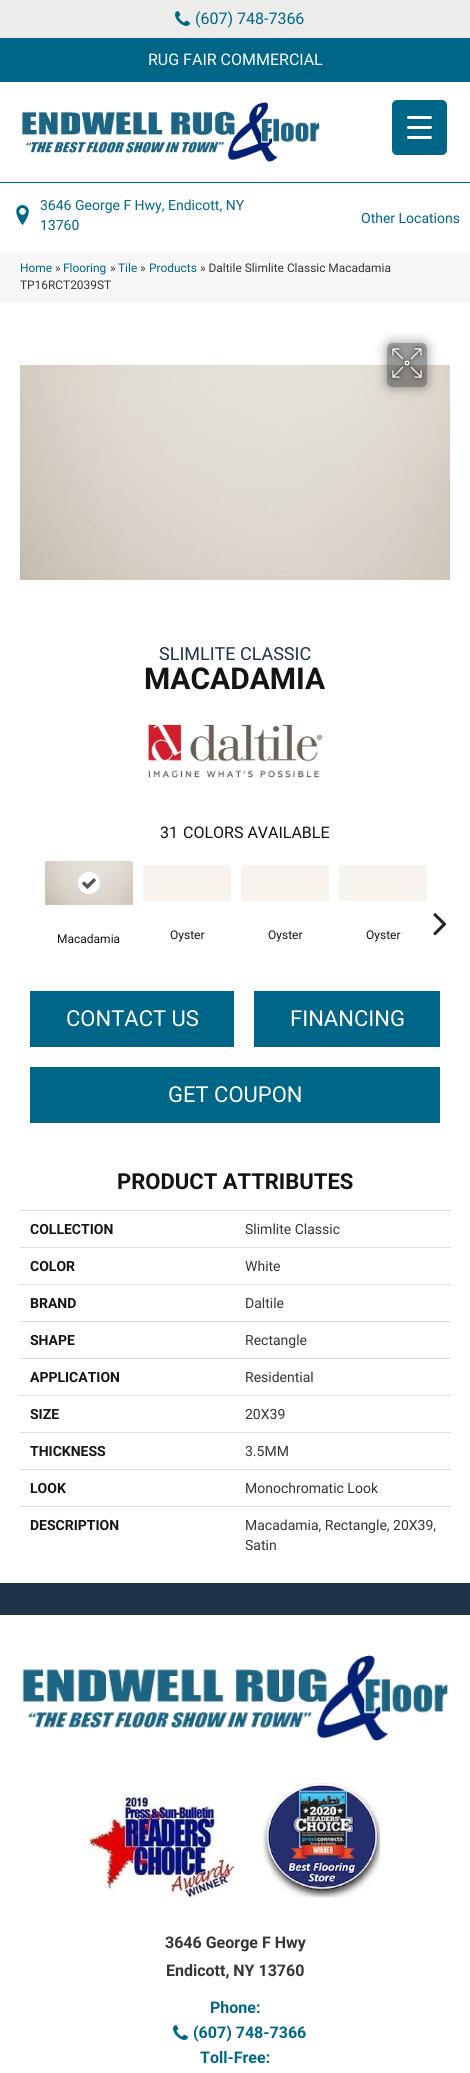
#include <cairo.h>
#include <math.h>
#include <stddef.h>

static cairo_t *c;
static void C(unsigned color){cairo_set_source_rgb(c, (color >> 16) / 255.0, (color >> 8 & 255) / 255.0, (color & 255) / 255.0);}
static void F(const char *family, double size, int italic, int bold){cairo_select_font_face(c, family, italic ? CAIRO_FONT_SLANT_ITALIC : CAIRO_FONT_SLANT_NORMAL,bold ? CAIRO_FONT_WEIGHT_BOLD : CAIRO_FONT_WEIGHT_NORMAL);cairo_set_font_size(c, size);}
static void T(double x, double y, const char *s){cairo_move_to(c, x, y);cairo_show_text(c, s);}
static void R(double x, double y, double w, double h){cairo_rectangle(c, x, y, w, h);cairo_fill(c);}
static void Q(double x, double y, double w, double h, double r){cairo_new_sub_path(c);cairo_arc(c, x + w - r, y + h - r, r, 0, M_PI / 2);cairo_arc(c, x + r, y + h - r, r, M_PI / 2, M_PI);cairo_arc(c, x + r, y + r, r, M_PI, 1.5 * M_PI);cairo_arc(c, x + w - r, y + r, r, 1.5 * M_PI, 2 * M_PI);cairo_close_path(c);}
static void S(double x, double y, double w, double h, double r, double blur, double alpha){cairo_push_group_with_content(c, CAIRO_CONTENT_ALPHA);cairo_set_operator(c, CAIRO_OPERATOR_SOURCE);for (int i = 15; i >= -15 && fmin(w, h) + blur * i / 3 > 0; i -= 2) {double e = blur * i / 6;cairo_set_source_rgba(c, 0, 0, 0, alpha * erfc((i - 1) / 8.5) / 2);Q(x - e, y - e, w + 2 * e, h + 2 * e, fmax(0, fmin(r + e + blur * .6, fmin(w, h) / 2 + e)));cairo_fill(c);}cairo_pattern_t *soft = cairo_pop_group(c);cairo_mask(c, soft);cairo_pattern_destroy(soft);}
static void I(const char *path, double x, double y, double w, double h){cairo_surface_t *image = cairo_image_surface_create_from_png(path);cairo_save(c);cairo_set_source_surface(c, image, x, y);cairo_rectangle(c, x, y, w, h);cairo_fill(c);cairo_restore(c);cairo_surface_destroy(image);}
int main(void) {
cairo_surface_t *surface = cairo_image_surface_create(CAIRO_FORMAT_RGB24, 470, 2073);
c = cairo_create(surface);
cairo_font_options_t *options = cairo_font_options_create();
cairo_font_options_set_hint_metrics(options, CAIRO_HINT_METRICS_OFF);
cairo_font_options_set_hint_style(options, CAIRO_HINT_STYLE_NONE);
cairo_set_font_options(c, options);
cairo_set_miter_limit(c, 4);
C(0xffffff);
cairo_paint(c);
C(0xececeb);
R(0,0,470,38);
I("1.png",175,11,15,15);
F("Roboto",16,0,0);
C(0x006688);
T(195,24,"(607) 748-7366");
R(0,38,470,44);
C(0xffffff);
T(148,65,"RUG FAIR COMMERCIAL");
I("2.png",21,102,299,60);
C(0x006688);
R(0,182,470,1);
I("3.png",16,205,13,20);
F("Roboto",14,0,0);
T(40,210,"3646 George F Hwy, Endicott, NY");
T(40,230,"13760");
T(361,223,"Other Locations");
C(0xf7f7f7);
R(0,252,470,51);
F("Roboto",11.9,0,0);
C(0x006688);
T(20,272,"Home");
C(0x353535);
T(55,272,"»");
C(0x006688);
T(63,272,"Flooring");
C(0x353535);
T(110,272,"»");
C(0x006688);
T(118,272,"Tile");
C(0x353535);
T(140,272,"»");
C(0x006688);
T(149,272,"Products");
C(0x353535);
T(200,272,"» Daltile Slimlite Classic Macadamia");
T(20,289,"TP16RCT2039ST");
I("5.png",20,365,430,215);
cairo_save(c);
cairo_set_fill_rule(c,CAIRO_FILL_RULE_EVEN_ODD);
cairo_new_path(c);
cairo_move_to(c,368,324);
cairo_line_to(c,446,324);
cairo_line_to(c,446,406);
cairo_line_to(c,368,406);
cairo_close_path(c);
cairo_move_to(c,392,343);
cairo_line_to(c,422,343);
cairo_curve_to(c,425,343,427,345,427,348);
cairo_line_to(c,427,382);
cairo_curve_to(c,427,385,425,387,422,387);
cairo_line_to(c,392,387);
cairo_curve_to(c,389,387,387,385,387,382);
cairo_line_to(c,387,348);
cairo_curve_to(c,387,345,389,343,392,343);
cairo_close_path(c);
cairo_clip(c);
C(0x000000);
S(387,343,40,44,5,6,.41);
cairo_restore(c);
cairo_set_source_rgba(c,0,0,0,0.4);
Q(387,343,40,44,5);
cairo_fill(c);
I("4.png",388,344,38,38);
F("Roboto",18,0,0);
C(0x1d3347);
T(159,660,"SLIMLITE CLASSIC");
F("Roboto",30,0,1);
C(0x141414);
T(144,689,"MACADAMIA");
I("6.png",148,723,175,55);
F("Roboto",16,0,0);
T(160,838,"31");
T(183,838,"COLORS AVAILABLE");
I("7.png",45,861,88,44);
C(0xffffff);
cairo_arc(c,89,883,11,0,2 * M_PI);
cairo_fill(c);
I("8.png",82,878,14,11);
F("Roboto",12,0,0);
C(0x141414);
T(57,943,"Macadamia");
C(0xf7f4ed);
R(143,865,88,36);
C(0x141414);
T(170,939,"Oyster");
C(0xf7f4ed);
R(241,865,88,36);
C(0x141414);
T(268,939,"Oyster");
C(0xf7f4ed);
R(339,865,88,36);
C(0x141414);
T(366,939,"Oyster");
I("9.png",433,913,14,23);
C(0x006688);
R(30,991,204,56);
F("Roboto",22,0,0);
C(0xffffff);
T(66,1026,"CONTACT US");
C(0x006688);
R(254,991,186,56);
C(0xffffff);
T(290,1026,"FINANCING");
C(0x006688);
R(30,1067,410,56);
C(0xffffff);
T(168,1102,"GET COUPON");
F("Roboto",22,0,1);
C(0x141414);
T(117,1189,"PRODUCT ATTRIBUTES");
F("Roboto",14,0,1);
T(30,1234,"COLLECTION");
C(0xdddddd);
R(20,1210,431,1);
F("Roboto",14,0,0);
C(0x353535);
T(245,1234,"Slimlite Classic");
F("Roboto",14,0,1);
C(0x141414);
T(30,1271,"COLOR");
C(0xdddddd);
R(20,1247,431,1);
F("Roboto",14,0,0);
C(0x353535);
T(245,1271,"White");
F("Roboto",14,0,1);
C(0x141414);
T(30,1308,"BRAND");
C(0xdddddd);
R(20,1284,431,1);
F("Roboto",14,0,0);
C(0x353535);
T(245,1308,"Daltile");
F("Roboto",14,0,1);
C(0x141414);
T(30,1345,"SHAPE");
C(0xdddddd);
R(20,1321,431,1);
F("Roboto",14,0,0);
C(0x353535);
T(245,1345,"Rectangle");
F("Roboto",14,0,1);
C(0x141414);
T(30,1382,"APPLICATION");
C(0xdddddd);
R(20,1358,431,1);
F("Roboto",14,0,0);
C(0x353535);
T(245,1382,"Residential");
F("Roboto",14,0,1);
C(0x141414);
T(30,1419,"SIZE");
C(0xdddddd);
R(20,1395,431,1);
F("Roboto",14,0,0);
C(0x353535);
T(245,1419,"20X39");
F("Roboto",14,0,1);
C(0x141414);
T(30,1456,"THICKNESS");
C(0xdddddd);
R(20,1432,431,1);
F("Roboto",14,0,0);
C(0x353535);
T(245,1456,"3.5MM");
F("Roboto",14,0,1);
C(0x141414);
T(30,1493,"LOOK");
C(0xdddddd);
R(20,1469,431,1);
F("Roboto",14,0,0);
C(0x353535);
T(245,1493,"Monochromatic Look");
F("Roboto",14,0,1);
C(0x141414);
T(30,1530,"DESCRIPTION");
C(0xdddddd);
R(20,1506,431,1);
F("Roboto",14,0,0);
C(0x353535);
T(245,1530,"Macadamia, Rectangle, 20X39,");
T(245,1550,"Satin");
C(0x1d3347);
R(0,1583,470,32);
I("10.png",21,1655,428,86);
I("11.png",85,1782,296,116);
F("Roboto",16,0,1);
C(0x353535);
T(165,1948,"3646 George F Hwy");
T(166,1976,"Endicott, NY 13760");
C(0x006688);
T(210,2013,"Phone:");
I("12.png",173,2025,15,15);
T(193,2038,"(607) 748-7366");
T(200,2063,"Toll-Free:");
Q(392,100,55,55,5);
cairo_fill(c);
C(0xffffff);
Q(407,126,25,3,1.5);
cairo_fill(c);
Q(407,116,25,3,1.5);
cairo_fill(c);
Q(407,136,25,3,1.5);
cairo_fill(c);
cairo_surface_write_to_png(surface, "o.png");
cairo_font_options_destroy(options);
cairo_destroy(c);
cairo_surface_destroy(surface);
return 0;
}
